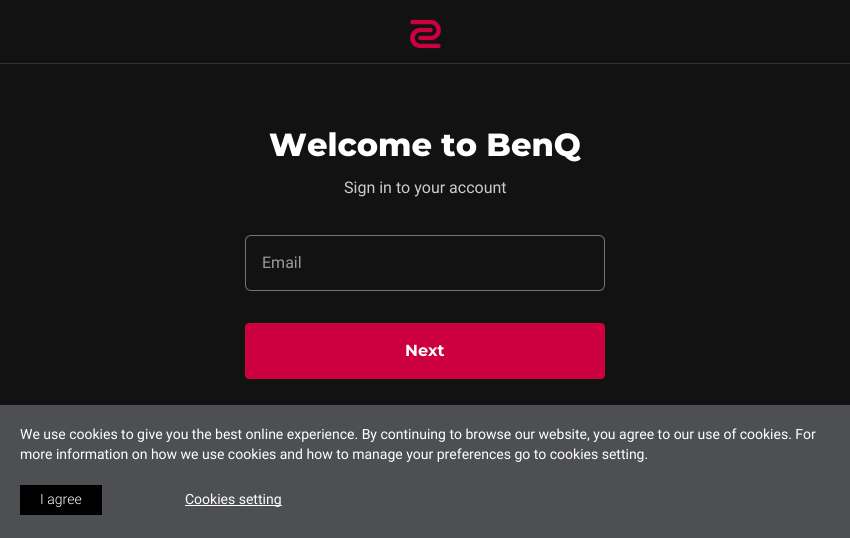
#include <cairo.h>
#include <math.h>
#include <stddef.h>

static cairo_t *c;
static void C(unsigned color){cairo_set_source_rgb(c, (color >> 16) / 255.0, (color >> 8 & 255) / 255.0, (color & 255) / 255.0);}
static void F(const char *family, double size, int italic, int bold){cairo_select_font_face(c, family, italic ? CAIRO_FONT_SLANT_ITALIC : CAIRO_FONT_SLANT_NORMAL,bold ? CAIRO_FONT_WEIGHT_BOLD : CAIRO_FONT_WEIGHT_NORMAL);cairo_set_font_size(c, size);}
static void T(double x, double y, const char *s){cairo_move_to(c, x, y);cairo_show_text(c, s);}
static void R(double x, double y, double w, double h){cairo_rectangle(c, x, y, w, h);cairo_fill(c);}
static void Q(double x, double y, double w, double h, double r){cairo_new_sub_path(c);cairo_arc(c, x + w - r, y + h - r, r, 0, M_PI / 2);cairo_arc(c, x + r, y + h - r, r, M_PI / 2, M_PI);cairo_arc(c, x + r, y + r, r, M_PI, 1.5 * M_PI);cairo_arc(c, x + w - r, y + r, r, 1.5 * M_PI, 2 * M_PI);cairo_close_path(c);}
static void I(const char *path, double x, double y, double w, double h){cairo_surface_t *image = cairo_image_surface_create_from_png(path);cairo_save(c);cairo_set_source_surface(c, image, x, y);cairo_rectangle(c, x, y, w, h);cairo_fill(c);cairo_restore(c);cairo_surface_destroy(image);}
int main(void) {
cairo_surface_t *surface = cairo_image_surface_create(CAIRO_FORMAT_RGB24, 850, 538);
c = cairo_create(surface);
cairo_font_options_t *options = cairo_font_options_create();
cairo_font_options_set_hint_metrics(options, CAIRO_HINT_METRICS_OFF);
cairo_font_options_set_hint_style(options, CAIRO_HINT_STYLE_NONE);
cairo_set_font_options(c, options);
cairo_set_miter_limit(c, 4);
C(0x121212);
cairo_paint(c);
F("Montserrat ExtraBold",32,0,0);
C(0xffffff);
T(269,156,"Welcome to BenQ");
F("Roboto",16,0,0);
C(0xcccccc);
T(344,193,"Sign in to your account");
Q(245.5,235.5,359,55,5.5);
C(0x757575);
cairo_set_line_width(c,1);
cairo_stroke(c);
C(0x999999);
T(262,268,"Email");
C(0xcc0040);
Q(245,323,360,56,4);
cairo_fill(c);
F("Montserrat",16,0,1);
C(0xffffff);
T(405,356,"Next");
C(0x333333);
R(0,63,850,1);
I("1.png",410,19,31,30);
C(0x4d4f52);
R(0,405,850,133);
F("Roboto",14,0,0);
C(0xffffff);
T(20,439,"We use cookies to give you the best online experience. By continuing to browse our website, you agree to our use of cookies. For");
T(20,459,"more information on how we use cookies and how to manage your preferences go to cookies setting.");
C(0x000000);
R(20,485,82,30);
F("Roboto Light",14,0,0);
C(0xffffff);
T(40,504,"I agree");
R(185,505,97,1);
F("Roboto",14,0,0);
T(185,504,"Cookies setting");
cairo_surface_write_to_png(surface, "o.png");
cairo_font_options_destroy(options);
cairo_destroy(c);
cairo_surface_destroy(surface);
return 0;
}
